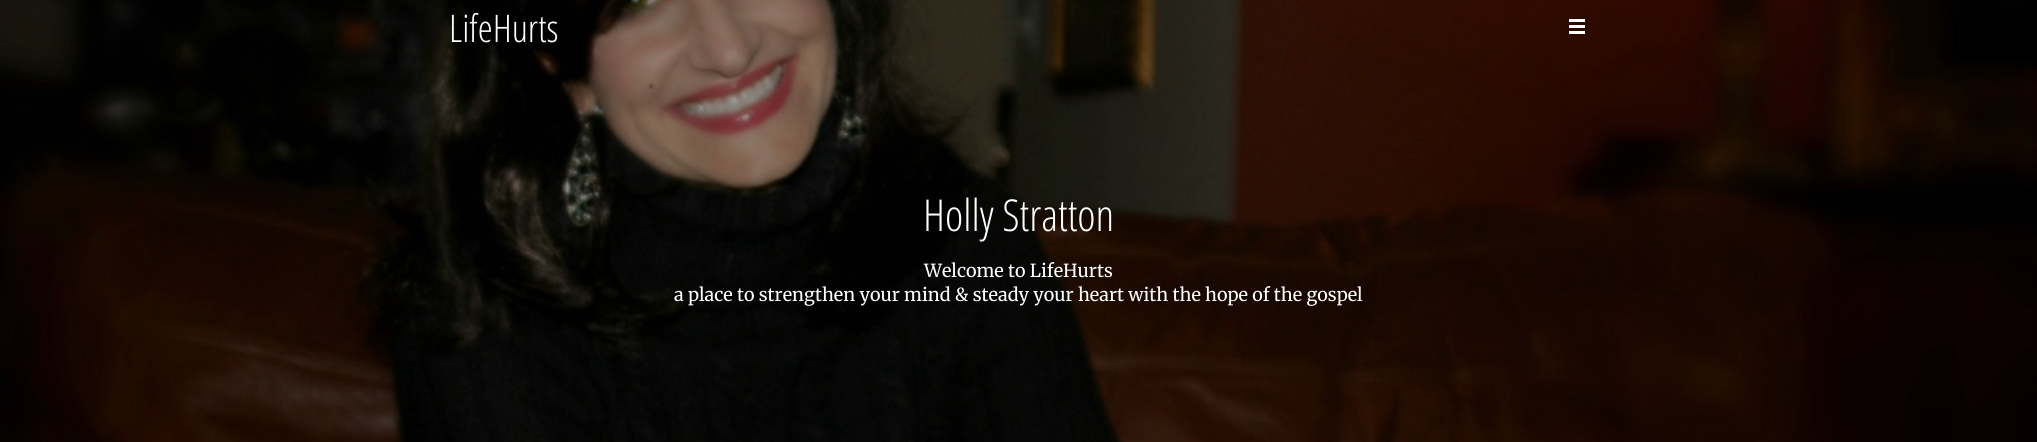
#include <cairo.h>
#include <math.h>
#include <stddef.h>

static cairo_t *c;
static void C(unsigned color){cairo_set_source_rgb(c, (color >> 16) / 255.0, (color >> 8 & 255) / 255.0, (color & 255) / 255.0);}
static void F(const char *family, double size, int italic, int bold){cairo_select_font_face(c, family, italic ? CAIRO_FONT_SLANT_ITALIC : CAIRO_FONT_SLANT_NORMAL,bold ? CAIRO_FONT_WEIGHT_BOLD : CAIRO_FONT_WEIGHT_NORMAL);cairo_set_font_size(c, size);}
static void T(double x, double y, const char *s){cairo_move_to(c, x, y);cairo_show_text(c, s);}
static void I(const char *path, double x, double y, double w, double h){cairo_surface_t *image = cairo_image_surface_create_from_png(path);cairo_save(c);cairo_set_source_surface(c, image, x, y);cairo_rectangle(c, x, y, w, h);cairo_fill(c);cairo_restore(c);cairo_surface_destroy(image);}
int main(void) {
cairo_surface_t *surface = cairo_image_surface_create(CAIRO_FORMAT_RGB24, 2037, 442);
c = cairo_create(surface);
cairo_font_options_t *options = cairo_font_options_create();
cairo_font_options_set_hint_metrics(options, CAIRO_HINT_METRICS_OFF);
cairo_font_options_set_hint_style(options, CAIRO_HINT_STYLE_NONE);
cairo_set_font_options(c, options);
cairo_set_miter_limit(c, 4);
C(0xffffff);
cairo_paint(c);
I("2.png",0,0,2037,442);
F("Open Sans Condensed Light",38,0,0);
C(0xffffff);
T(449,42,"LifeHurts");
I("1.png",1569,19,16,15);
F("Open Sans Condensed Light",44,0,0);
T(923,231,"Holly Stratton");
F("Merriweather Light",18,0,0);
T(924,277,"Welcome to LifeHurts");
T(674,301,"a place to strengthen your mind & steady your heart with the hope of the gospel");
cairo_surface_write_to_png(surface, "o.png");
cairo_font_options_destroy(options);
cairo_destroy(c);
cairo_surface_destroy(surface);
return 0;
}
